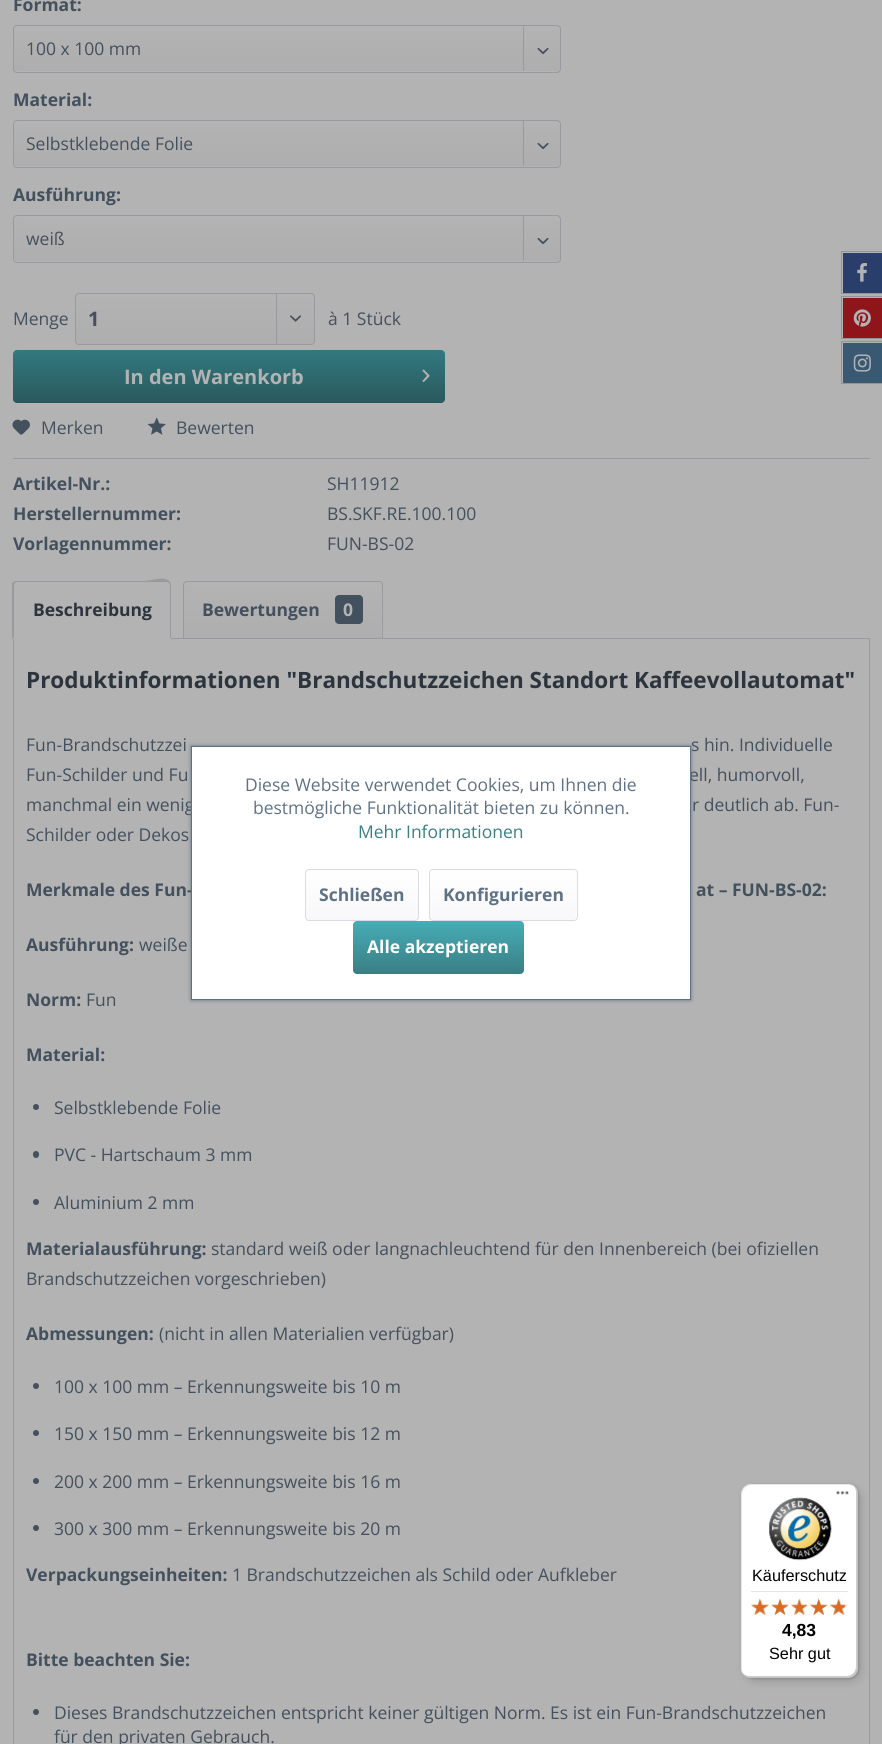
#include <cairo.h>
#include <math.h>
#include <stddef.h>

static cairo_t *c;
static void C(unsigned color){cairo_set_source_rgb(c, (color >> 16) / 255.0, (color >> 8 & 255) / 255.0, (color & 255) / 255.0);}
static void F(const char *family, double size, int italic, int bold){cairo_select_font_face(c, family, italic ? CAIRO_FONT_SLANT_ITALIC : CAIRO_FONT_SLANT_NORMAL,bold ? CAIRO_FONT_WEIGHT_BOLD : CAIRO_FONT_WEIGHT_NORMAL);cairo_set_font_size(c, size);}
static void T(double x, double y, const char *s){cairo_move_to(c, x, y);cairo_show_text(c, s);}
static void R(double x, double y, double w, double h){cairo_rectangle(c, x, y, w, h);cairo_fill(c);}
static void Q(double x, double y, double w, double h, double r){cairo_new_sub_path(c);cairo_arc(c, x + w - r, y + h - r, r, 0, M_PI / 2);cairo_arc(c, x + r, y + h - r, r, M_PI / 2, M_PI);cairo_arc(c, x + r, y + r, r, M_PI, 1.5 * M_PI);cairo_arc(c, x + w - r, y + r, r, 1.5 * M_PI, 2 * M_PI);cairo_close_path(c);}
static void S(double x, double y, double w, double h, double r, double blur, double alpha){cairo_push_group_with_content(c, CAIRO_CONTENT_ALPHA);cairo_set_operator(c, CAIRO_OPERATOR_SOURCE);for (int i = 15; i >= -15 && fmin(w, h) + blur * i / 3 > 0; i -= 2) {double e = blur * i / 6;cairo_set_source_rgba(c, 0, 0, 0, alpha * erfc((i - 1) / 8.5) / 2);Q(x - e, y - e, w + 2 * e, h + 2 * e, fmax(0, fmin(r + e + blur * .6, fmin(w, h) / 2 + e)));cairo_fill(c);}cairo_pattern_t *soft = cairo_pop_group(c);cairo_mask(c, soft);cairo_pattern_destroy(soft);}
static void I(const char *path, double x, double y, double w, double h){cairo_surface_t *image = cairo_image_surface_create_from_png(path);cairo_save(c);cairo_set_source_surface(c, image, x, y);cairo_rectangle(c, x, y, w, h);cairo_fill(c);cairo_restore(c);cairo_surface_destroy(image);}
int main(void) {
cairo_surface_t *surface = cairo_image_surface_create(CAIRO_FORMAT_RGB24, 882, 1744);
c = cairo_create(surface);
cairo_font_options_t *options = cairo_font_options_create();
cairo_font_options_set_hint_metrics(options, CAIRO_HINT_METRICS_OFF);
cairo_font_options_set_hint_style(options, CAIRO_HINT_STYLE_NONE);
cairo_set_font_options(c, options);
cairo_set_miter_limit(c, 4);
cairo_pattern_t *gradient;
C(0xb3b3b3);
cairo_paint(c);
F("Open Sans",17.5,0,1);
C(0x43505d);
T(13,11,"Format:");
gradient = cairo_pattern_create_linear(287,26,287,71);
cairo_pattern_add_color_stop_rgba(gradient,0,0.702,0.702,0.702,1);
cairo_pattern_add_color_stop_rgba(gradient,1,0.682,0.682,0.686,1);
cairo_set_source(c,gradient);
cairo_pattern_destroy(gradient);
Q(14,26,546,45,2.5);
cairo_fill(c);
Q(13.5,25.5,547,47,3.5);
C(0x9999a0);
cairo_set_line_width(c,1);
cairo_stroke(c);
F("Open Sans",17.5,0,0);
C(0x43505d);
T(26,55,"100 x 100 mm");
C(0x9999a0);
R(523,26,1,45);
I("1.png",537,47,12,8);
F("Open Sans",17.5,0,1);
C(0x43505d);
T(13,106,"Material:");
gradient = cairo_pattern_create_linear(287,121,287,166);
cairo_pattern_add_color_stop_rgba(gradient,0,0.702,0.702,0.702,1);
cairo_pattern_add_color_stop_rgba(gradient,1,0.682,0.682,0.686,1);
cairo_set_source(c,gradient);
cairo_pattern_destroy(gradient);
Q(14,121,546,45,2.5);
cairo_fill(c);
Q(13.5,120.5,547,47,3.5);
C(0x9999a0);
cairo_stroke(c);
F("Open Sans",17.5,0,0);
C(0x43505d);
T(26,150,"Selbstklebende Folie");
C(0x9999a0);
R(523,121,1,45);
I("1.png",537,142,12,8);
F("Open Sans",17.5,0,1);
C(0x43505d);
T(13,201,"Ausführung:");
gradient = cairo_pattern_create_linear(287,216,287,261);
cairo_pattern_add_color_stop_rgba(gradient,0,0.702,0.702,0.702,1);
cairo_pattern_add_color_stop_rgba(gradient,1,0.682,0.682,0.686,1);
cairo_set_source(c,gradient);
cairo_pattern_destroy(gradient);
Q(14,216,546,45,2.5);
cairo_fill(c);
Q(13.5,215.5,547,47,3.5);
C(0x9999a0);
cairo_stroke(c);
F("Open Sans",17.5,0,0);
C(0x43505d);
T(26,245,"weiß");
C(0x9999a0);
R(523,216,1,45);
I("1.png",537,237,12,8);
C(0x43505d);
T(13,325,"Menge");
gradient = cairo_pattern_create_linear(195,294,195,344);
cairo_pattern_add_color_stop_rgba(gradient,0,0.702,0.702,0.702,1);
cairo_pattern_add_color_stop_rgba(gradient,1,0.682,0.682,0.686,1);
cairo_set_source(c,gradient);
cairo_pattern_destroy(gradient);
Q(76,294,238,50,2.5);
cairo_fill(c);
Q(75.5,293.5,239,51,3.5);
C(0x9999a0);
cairo_stroke(c);
F("Open Sans",20,0,1);
C(0x43505d);
T(88,326,"1");
C(0x9999a0);
R(276,294,1,50);
I("2.png",290,315,11,7);
F("Open Sans",17.5,0,0);
C(0x43505d);
T(328,325,"à 1 Stück");
gradient = cairo_pattern_create_linear(229,350,229,403);
cairo_pattern_add_color_stop_rgba(gradient,0,0.196,0.475,0.498,1);
cairo_pattern_add_color_stop_rgba(gradient,1,0.161,0.349,0.365,1);
cairo_set_source(c,gradient);
cairo_pattern_destroy(gradient);
Q(13,350,432,53,4);
cairo_fill(c);
F("Open Sans",20,0,1);
C(0xb3b3b3);
T(124,384,"In den Warenkorb");
I("3.png",422,369,8,13);
C(0x9999a0);
R(13,458,857,1);
I("4.png",12,419,18,16);
F("Open Sans",17.5,0,0);
C(0x43505d);
T(41,434,"Merken");
I("5.png",147,417,19,18);
T(176,434,"Bewerten");
F("Open Sans",17.5,0,1);
T(13,490,"Artikel-Nr.:");
F("Open Sans",17.5,0,0);
T(327,490,"SH11912");
F("Open Sans",17.5,0,1);
T(13,520,"Herstellernummer:");
F("Open Sans",17.5,0,0);
T(327,520,"BS.SKF.RE.100.100");
F("Open Sans",17.5,0,1);
T(13,550,"Vorlagennummer:");
F("Open Sans",17.5,0,0);
T(327,550,"FUN-BS-02");
cairo_rectangle(c,13.5,638.5,856,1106);
C(0x9999a0);
cairo_stroke(c);
C(0xb3b3b3);
cairo_new_path(c);
cairo_move_to(c,17,581);
cairo_line_to(c,167,581);
cairo_curve_to(c,169,581,171,583,171,585);
cairo_line_to(c,171,639);
cairo_line_to(c,13,639);
cairo_line_to(c,13,585);
cairo_curve_to(c,13,583,15,581,17,581);
cairo_close_path(c);
cairo_fill(c);
C(0x9999a0);
cairo_new_path(c);
cairo_move_to(c,16,582);
cairo_line_to(c,15,583);
cairo_line_to(c,13,582);
cairo_line_to(c,15,581);
cairo_line_to(c,143,581);
cairo_curve_to(c,152,581,165,575,170,582);
cairo_line_to(c,169,583);
cairo_line_to(c,168,582);
cairo_close_path(c);
cairo_fill(c);
cairo_new_path(c);
cairo_move_to(c,170,582);
cairo_line_to(c,171,585);
cairo_line_to(c,171,638);
cairo_line_to(c,170,638);
cairo_line_to(c,170,585);
cairo_line_to(c,169,583);
cairo_close_path(c);
cairo_fill(c);
cairo_new_path(c);
cairo_move_to(c,12,639);
cairo_line_to(c,12,583);
cairo_line_to(c,13,582);
cairo_line_to(c,15,583);
cairo_line_to(c,14,585);
cairo_line_to(c,14,637);
cairo_close_path(c);
cairo_fill(c);
F("Open Sans",17.5,0,1);
C(0x2c353e);
T(33,616,"Beschreibung");
gradient = cairo_pattern_create_linear(283,583,283,638);
cairo_pattern_add_color_stop_rgba(gradient,0,0.702,0.702,0.702,1);
cairo_pattern_add_color_stop_rgba(gradient,1,0.682,0.682,0.686,1);
cairo_set_source(c,gradient);
cairo_pattern_destroy(gradient);
cairo_new_path(c);
cairo_move_to(c,186.5,583);
cairo_line_to(c,378.5,583);
cairo_curve_to(c,380,583,381,584,381,585.5);
cairo_line_to(c,381,638);
cairo_line_to(c,184,638);
cairo_line_to(c,184,585.5);
cairo_curve_to(c,184,584,185,583,186.5,583);
cairo_close_path(c);
cairo_fill(c);
cairo_new_path(c);
cairo_move_to(c,187,581.5);
cairo_line_to(c,379,581.5);
cairo_curve_to(c,381,581.5,382.5,583,382.5,585);
cairo_line_to(c,382.5,638.5);
cairo_line_to(c,183.5,638.5);
cairo_line_to(c,183.5,585);
cairo_curve_to(c,183.5,583,185,581.5,187,581.5);
cairo_close_path(c);
C(0x9999a0);
cairo_stroke(c);
C(0x43505d);
T(202,616,"Bewertungen");
Q(335,595,28,29,4);
cairo_fill(c);
C(0xb3b3b3);
T(343,616,"0");
F("Open Sans",22.5,0,1);
C(0x2c353e);
T(26,688,"Produktinformationen \"Brandschutzzeichen Standort Kaffeevollautomat\"");
F("Open Sans",17.5,0,0);
C(0x43505d);
T(26,751,"Fun-Brandschutzzei");
T(691,751,"s hin. Individuelle");
T(26,781,"Fun-Schilder und Fu");
T(689,781,"ell, humorvoll,");
T(26,811,"manchmal ein wenig");
T(692,811,"r deutlich ab. Fun-");
T(26,841,"Schilder oder Dekos");
F("Open Sans",17.5,0,1);
T(26,896,"Merkmale des Fun-");
T(696,896,"at – FUN-BS-02:");
T(26,951,"Ausführung:");
F("Open Sans",17.5,0,0);
T(139,951,"weiße");
F("Open Sans",17.5,0,1);
T(26,1006,"Norm:");
F("Open Sans",17.5,0,0);
T(86,1006,"Fun");
F("Open Sans",17.5,0,1);
T(26,1061,"Material:");
cairo_new_path(c);
cairo_arc(c,36,1107,3,0,2 * M_PI);
cairo_fill(c);
F("Open Sans",17.5,0,0);
T(54,1114,"Selbstklebende Folie");
Q(33,1151,6,7,3);
cairo_fill(c);
T(54,1161,"PVC - Hartschaum 3 mm");
cairo_new_path(c);
cairo_arc(c,36,1202,3,0,2 * M_PI);
cairo_fill(c);
T(54,1209,"Aluminium 2 mm");
F("Open Sans",17.5,0,1);
T(26,1255,"Materialausführung:");
F("Open Sans",17.5,0,0);
T(211,1255,"standard weiß oder langnachleuchtend für den Innenbereich (bei ofiziellen");
T(26,1285,"Brandschutzzeichen vorgeschrieben)");
F("Open Sans",17.5,0,1);
T(26,1340,"Abmessungen:");
F("Open Sans",17.5,0,0);
T(159,1340,"(nicht in allen Materialien verfügbar)");
cairo_new_path(c);
cairo_arc(c,36,1386,3,0,2 * M_PI);
cairo_fill(c);
T(54,1393,"100 x 100 mm – Erkennungsweite bis 10 m");
cairo_new_path(c);
cairo_arc(c,36,1433,3,0,2 * M_PI);
cairo_fill(c);
T(54,1440,"150 x 150 mm – Erkennungsweite bis 12 m");
cairo_new_path(c);
cairo_arc(c,36,1481,3,0,2 * M_PI);
cairo_fill(c);
T(54,1488,"200 x 200 mm – Erkennungsweite bis 16 m");
cairo_new_path(c);
cairo_arc(c,36,1528,3,0,2 * M_PI);
cairo_fill(c);
T(54,1535,"300 x 300 mm – Erkennungsweite bis 20 m");
F("Open Sans",17.5,0,1);
T(26,1581,"Verpackungseinheiten:");
F("Open Sans",17.5,0,0);
T(232,1581,"1 Brandschutzzeichen als Schild oder Aufkleber");
F("Open Sans",17.5,0,1);
T(26,1666,"Bitte beachten Sie:");
cairo_new_path(c);
cairo_arc(c,36,1712,3,0,2 * M_PI);
cairo_fill(c);
F("Open Sans",17.5,0,0);
T(54,1719,"Dieses Brandschutzzeichen entspricht keiner gültigen Norm. Es ist ein Fun-Brandschutzzeichen");
T(54,1743,"für den privaten Gebrauch.");
C(0x293e6a);
R(843,253,39,40);
C(0x949494);
R(841,251,41,1);
R(841,293,41,1);
R(841,251,1,43);
I("6.png",857,263,10,19);
C(0x8e161b);
R(843,298,39,40);
C(0x949494);
R(841,296,41,1);
R(841,338,41,1);
R(841,296,1,43);
I("7.png",853,309,18,18);
C(0x395973);
R(843,343,39,40);
C(0x949494);
R(841,341,41,1);
R(841,383,41,1);
R(841,341,1,43);
I("8.png",853,354,18,18);
C(0x5f7285);
S(191,746,500,254,0,2,1);
C(0xffffff);
cairo_rectangle(c,191.5,746.5,499,253);
cairo_fill_preserve(c);
C(0x5f7285);
cairo_stroke(c);
T(245,791,"Diese Website verwendet Cookies, um Ihnen die");
T(253,814,"bestmögliche Funktionalität bieten zu können.");
C(0x3b7f85);
T(358,838,"Mehr Informationen");
gradient = cairo_pattern_create_linear(362,869,362,919);
cairo_pattern_add_color_stop_rgba(gradient,0,1,1,1,1);
cairo_pattern_add_color_stop_rgba(gradient,1,0.973,0.973,0.98,1);
cairo_set_source(c,gradient);
cairo_pattern_destroy(gradient);
Q(306,870,112,50,2.5);
cairo_fill(c);
Q(305.5,869.5,113,51,3.5);
C(0xdadae5);
cairo_stroke(c);
F("Open Sans",17.5,0,1);
C(0x5f7285);
T(319,901,"Schließen");
gradient = cairo_pattern_create_linear(503,869,503,919);
cairo_pattern_add_color_stop_rgba(gradient,0,1,1,1,1);
cairo_pattern_add_color_stop_rgba(gradient,1,0.973,0.973,0.98,1);
cairo_set_source(c,gradient);
cairo_pattern_destroy(gradient);
Q(430,870,146,50,2.5);
cairo_fill(c);
Q(429.5,869.5,148,51,3.5);
C(0xdadae5);
cairo_stroke(c);
C(0x5f7285);
T(443,901,"Konfigurieren");
gradient = cairo_pattern_create_linear(438,921,438,973);
cairo_pattern_add_color_stop_rgba(gradient,0,0.278,0.678,0.714,1);
cairo_pattern_add_color_stop_rgba(gradient,1,0.231,0.498,0.522,1);
cairo_set_source(c,gradient);
cairo_pattern_destroy(gradient);
Q(353,921,171,53,4);
cairo_fill(c);
C(0xffffff);
T(367,953,"Alle akzeptieren");
C(0x000000);
S(745,1488,116,193,10,5,.15);
S(743,1485,116,194,10,1,.15);
C(0xffffff);
Q(741,1484,117,194,10);
cairo_fill(c);
cairo_set_source_rgba(c,0,0,0,0.1);
cairo_new_path(c);
cairo_move_to(c,752,1485);
cairo_line_to(c,849,1485);
cairo_curve_to(c,851,1485,854,1486,856,1488);
cairo_curve_to(c,854,1485,851,1484,848,1484);
cairo_line_to(c,751,1484);
cairo_curve_to(c,745,1484,741,1488,741,1494);
cairo_line_to(c,741,1668);
cairo_curve_to(c,741,1672,743,1675,746,1677);
cairo_curve_to(c,744,1675,742,1672,742,1669);
cairo_line_to(c,742,1495);
cairo_curve_to(c,742,1489,747,1485,752,1485);
cairo_close_path(c);
cairo_fill(c);
cairo_set_source_rgba(c,0,0,0,0.2);
cairo_new_path(c);
cairo_move_to(c,742,1672);
cairo_curve_to(c,744,1676,747,1678,751,1678);
cairo_line_to(c,848,1678);
cairo_curve_to(c,854,1678,858,1674,858,1668);
cairo_line_to(c,858,1494);
cairo_curve_to(c,858,1491,856,1488,854,1486);
cairo_curve_to(c,855,1488,856,1490,856,1492);
cairo_line_to(c,856,1666);
cairo_curve_to(c,856,1672,852,1676,846,1676);
cairo_line_to(c,750,1676);
cairo_curve_to(c,747,1676,744,1675,742,1672);
cairo_close_path(c);
cairo_fill(c);
cairo_set_source_rgba(c,0.196,0.196,0.196,0.2);
cairo_new_path(c);
cairo_move_to(c,742,1673);
cairo_curve_to(c,744,1676,747,1678,751,1678);
cairo_line_to(c,848,1678);
cairo_curve_to(c,854,1678,858,1674,858,1668);
cairo_line_to(c,858,1494);
cairo_curve_to(c,858,1491,857,1488,855,1486);
cairo_curve_to(c,856,1488,857,1490,857,1493);
cairo_line_to(c,857,1667);
cairo_curve_to(c,857,1672,852,1677,847,1677);
cairo_line_to(c,750,1677);
cairo_curve_to(c,747,1677,744,1675,742,1673);
cairo_close_path(c);
cairo_fill(c);
cairo_set_source_rgba(c,1,1,1,0.3);
cairo_new_path(c);
cairo_move_to(c,741,1667);
cairo_line_to(c,741,1668);
cairo_curve_to(c,741,1674,745,1678,751,1678);
cairo_line_to(c,848,1678);
cairo_curve_to(c,854,1678,858,1674,858,1668);
cairo_line_to(c,858,1494);
cairo_curve_to(c,858,1490,856,1487,853,1485);
cairo_curve_to(c,855,1487,857,1490,857,1493);
cairo_line_to(c,857,1667);
cairo_curve_to(c,857,1672,852,1677,847,1677);
cairo_line_to(c,751,1677);
cairo_curve_to(c,745,1677,741,1672,741,1667);
cairo_close_path(c);
cairo_fill(c);
I("9.png",836,1491,13,4);
I("10.png",769,1497,63,64);
F("Liberation Sans",16.25,0,0);
C(0x000000);
T(752,1581,"Käuferschutz");
C(0xe5e5e5);
R(751,1591,97,1);
I("11.png",751,1599,18,16);
I("12.png",772,1599,16,16);
I("13.png",791,1599,17,16);
I("14.png",810,1598,17,17);
I("15.png",830,1599,18,16);
I("16.png",751,1598,18,17);
I("17.png",771,1598,18,17);
I("18.png",791,1598,17,17);
I("19.png",810,1598,17,17);
I("20.png",830,1598,15,17);
F("Liberation Sans",17.5,0,1);
C(0x000000);
T(782,1636,"4,83");
F("Liberation Sans",16.25,0,0);
T(769,1659,"Sehr gut");
cairo_surface_write_to_png(surface, "o.png");
cairo_font_options_destroy(options);
cairo_destroy(c);
cairo_surface_destroy(surface);
return 0;
}
